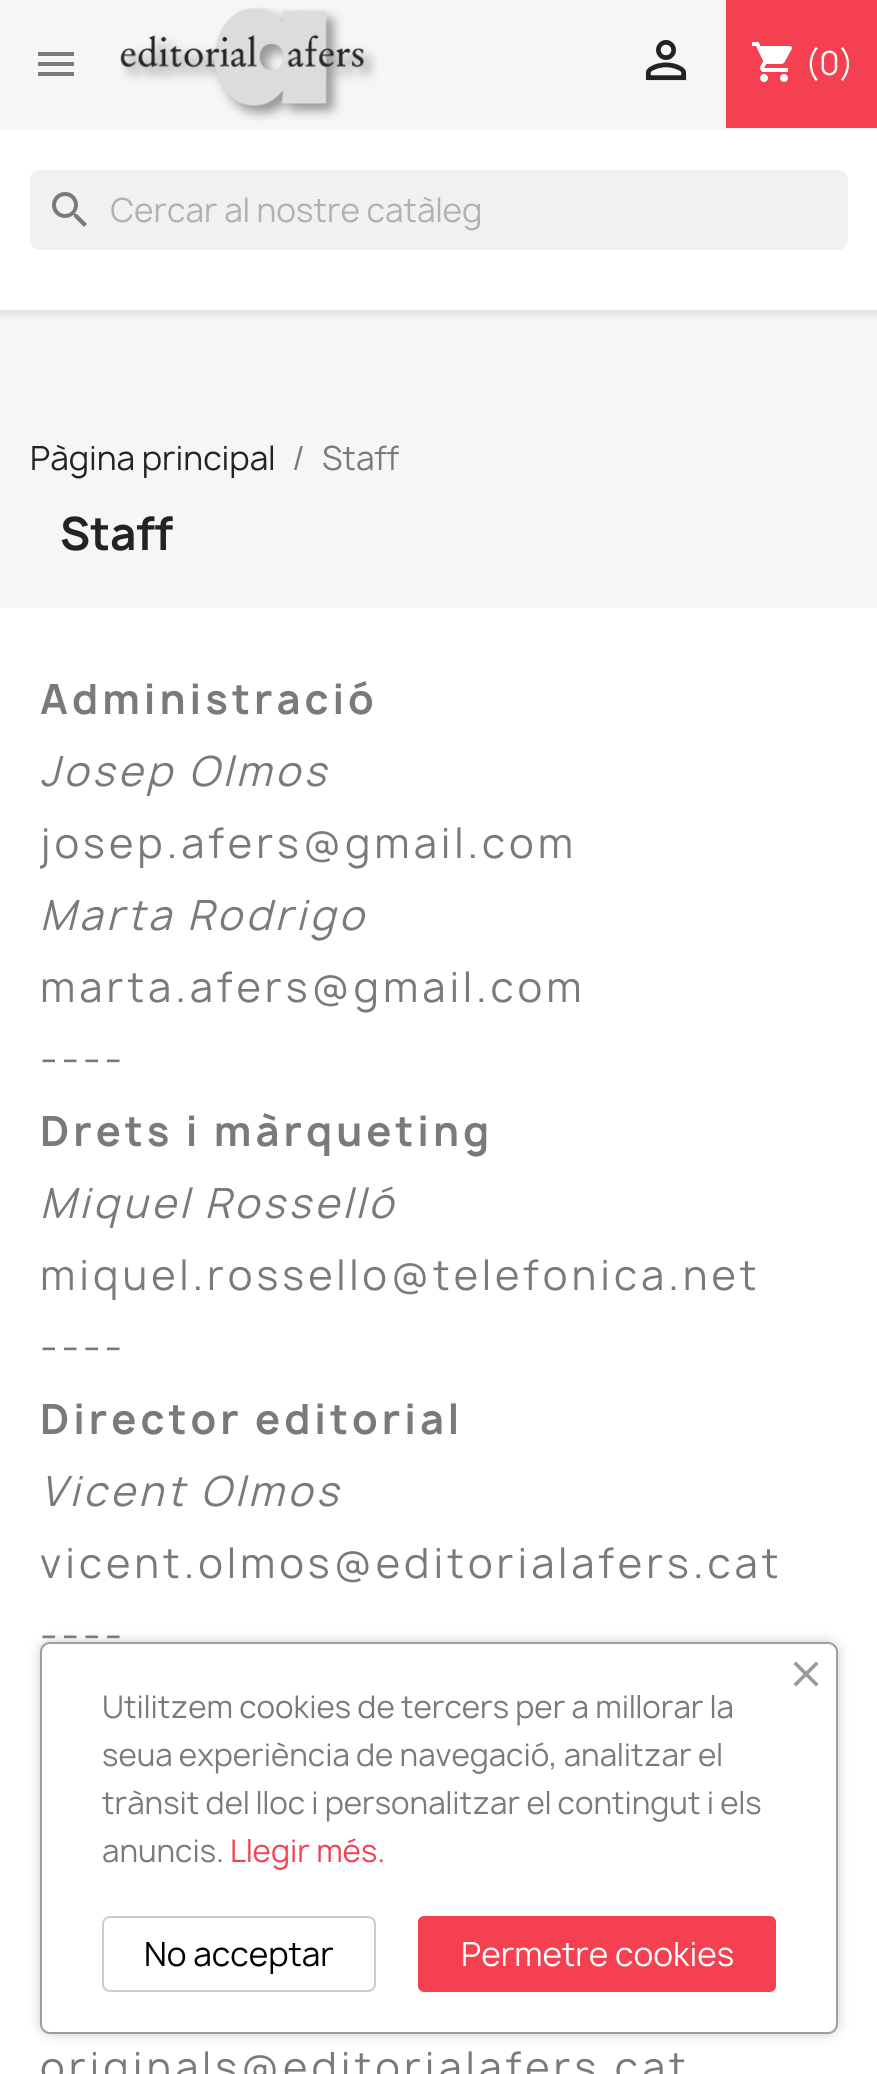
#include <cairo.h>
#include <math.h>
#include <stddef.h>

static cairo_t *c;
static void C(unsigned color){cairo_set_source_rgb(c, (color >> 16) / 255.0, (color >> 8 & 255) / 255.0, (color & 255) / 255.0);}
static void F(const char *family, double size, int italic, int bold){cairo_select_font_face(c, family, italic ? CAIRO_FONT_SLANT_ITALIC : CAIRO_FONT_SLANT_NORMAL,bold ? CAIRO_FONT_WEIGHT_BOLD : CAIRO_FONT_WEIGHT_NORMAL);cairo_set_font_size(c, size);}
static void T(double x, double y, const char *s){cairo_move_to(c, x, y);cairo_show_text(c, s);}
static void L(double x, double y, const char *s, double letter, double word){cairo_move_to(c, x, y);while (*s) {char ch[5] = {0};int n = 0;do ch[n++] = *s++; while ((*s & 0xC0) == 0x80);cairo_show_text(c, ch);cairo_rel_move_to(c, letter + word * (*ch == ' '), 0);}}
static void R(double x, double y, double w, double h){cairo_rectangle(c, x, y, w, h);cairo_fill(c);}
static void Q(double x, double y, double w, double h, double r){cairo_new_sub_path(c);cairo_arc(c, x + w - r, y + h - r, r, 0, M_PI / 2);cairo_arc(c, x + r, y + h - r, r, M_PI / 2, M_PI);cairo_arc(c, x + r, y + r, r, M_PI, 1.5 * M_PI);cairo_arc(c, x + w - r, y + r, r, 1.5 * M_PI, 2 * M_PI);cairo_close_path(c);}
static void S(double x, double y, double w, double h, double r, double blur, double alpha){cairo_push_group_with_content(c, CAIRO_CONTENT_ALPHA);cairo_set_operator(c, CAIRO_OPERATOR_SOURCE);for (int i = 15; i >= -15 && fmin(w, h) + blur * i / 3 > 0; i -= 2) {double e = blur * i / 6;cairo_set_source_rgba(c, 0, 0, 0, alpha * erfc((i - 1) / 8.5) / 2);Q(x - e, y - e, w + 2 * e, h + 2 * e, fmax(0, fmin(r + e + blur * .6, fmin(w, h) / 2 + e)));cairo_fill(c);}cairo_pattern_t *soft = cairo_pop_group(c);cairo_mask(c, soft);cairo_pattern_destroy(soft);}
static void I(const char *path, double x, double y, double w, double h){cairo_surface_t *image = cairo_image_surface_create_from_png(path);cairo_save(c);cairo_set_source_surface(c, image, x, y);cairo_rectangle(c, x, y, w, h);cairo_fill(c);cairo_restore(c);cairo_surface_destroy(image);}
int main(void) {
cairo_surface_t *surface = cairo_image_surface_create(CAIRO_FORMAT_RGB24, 877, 2074);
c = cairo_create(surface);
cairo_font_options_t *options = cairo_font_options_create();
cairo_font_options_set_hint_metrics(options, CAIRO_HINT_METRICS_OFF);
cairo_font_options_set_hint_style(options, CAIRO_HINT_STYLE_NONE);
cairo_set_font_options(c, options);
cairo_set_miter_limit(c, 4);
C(0xffffff);
cairo_paint(c);
C(0xf6f6f6);
R(0,310,877,298);
cairo_save(c);
cairo_rectangle(c,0,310,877,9);
cairo_clip(c);
C(0x000000);
S(0,4,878,310,0,5,.11);
cairo_restore(c);
R(0,0,877,130);
C(0x7a7a7a);
cairo_new_path(c);
cairo_move_to(c,38,52);
cairo_line_to(c,74,52);
cairo_line_to(c,74,56);
cairo_line_to(c,38,56);
cairo_close_path(c);
cairo_move_to(c,38,66);
cairo_line_to(c,38,62);
cairo_line_to(c,74,62);
cairo_line_to(c,74,66);
cairo_close_path(c);
cairo_move_to(c,38,76);
cairo_line_to(c,38,72);
cairo_line_to(c,74,72);
cairo_line_to(c,74,76);
cairo_close_path(c);
cairo_fill(c);
I("1.png",120,7,258,114);
I("2.png",645,40,42,41);
C(0xf44050);
R(726,0,151,128);
I("3.png",751,42,41,40);
F("Manrope",32,0,0);
C(0xffffff);
T(805,75,"(0)");
C(0xf1f1f1);
Q(30,170,818,80,10);
cairo_fill(c);
I("4.png",52,192,35,35);
C(0xb1b1b1);
T(110,222,"Cercar al nostre catàleg");
C(0x232323);
T(30,470,"Pàgina principal");
C(0x7a7a7a);
T(292,470,"/");
T(322,470,"Staff");
F("Manrope",44,0,1);
C(0x232323);
T(60,550,"Staff");
F("Manrope",40,0,1);
C(0x7a7a7a);
L(40,714,"Administració",4,0);
F("Manrope",40,1,0);
L(40,786,"Josep Olmos",4,0);
F("Manrope",40,0,0);
L(40,858,"josep.afers@gmail.com",4,0);
F("Manrope",40,1,0);
L(40,930,"Marta Rodrigo",4,0);
F("Manrope",40,0,0);
L(40,1002,"marta.afers@gmail.com",4,0);
L(40,1074,"----",4,0);
F("Manrope",40,0,1);
L(40,1146,"Drets i màrqueting",4,0);
F("Manrope",40,1,0);
L(40,1218,"Miquel Rosselló",4,0);
F("Manrope",40,0,0);
L(40,1290,"miquel.rossello@telefonica.net",4,0);
L(40,1362,"----",4,0);
F("Manrope",40,0,1);
L(40,1434,"Director editorial",4,0);
F("Manrope",40,1,0);
L(40,1506,"Vicent Olmos",4,0);
F("Manrope",40,0,0);
L(40,1578,"vicent.olmos@editorialafers.cat",4,0);
L(40,1650,"----",4,0);
L(40,2082,"originals@editorialafers.cat",4,0);
C(0x9e9e9e);
S(44,1646,790,384,6,7,1);
C(0xffffff);
Q(41,1643,796,390,9);
cairo_fill_preserve(c);
C(0x9e9e9e);
cairo_stroke(c);
C(0x999999);
cairo_new_path(c);
cairo_move_to(c,793.5,1684);
cairo_line_to(c,816,1661.5);
cairo_line_to(c,818.5,1664);
cairo_line_to(c,796,1686.5);
cairo_close_path(c);
cairo_fill(c);
cairo_new_path(c);
cairo_move_to(c,796,1661.5);
cairo_line_to(c,818.5,1684);
cairo_line_to(c,816,1686.5);
cairo_line_to(c,793.5,1664);
cairo_close_path(c);
cairo_fill(c);
F("Manrope",30,0,0);
C(0x7a7a7a);
T(102,1718,"Utilitzem cookies de tercers per a millorar la");
T(102,1766,"seua experiència de navegació, analitzar el");
T(102,1814,"trànsit del lloc i personalitzar el contingut i els");
T(102,1862,"anuncis.");
C(0xf44050);
T(230,1862,"Llegir més.");
Q(103,1917,272,74,7);
C(0xcccccc);
cairo_stroke(c);
F("Manrope",32,0,0);
C(0x000000);
T(144,1966,"No acceptar");
C(0xf44050);
Q(419,1917,356,74,5);
cairo_fill_preserve(c);
cairo_stroke(c);
C(0xffffff);
T(461,1966,"Permetre cookies");
cairo_surface_write_to_png(surface, "o.png");
cairo_font_options_destroy(options);
cairo_destroy(c);
cairo_surface_destroy(surface);
return 0;
}
